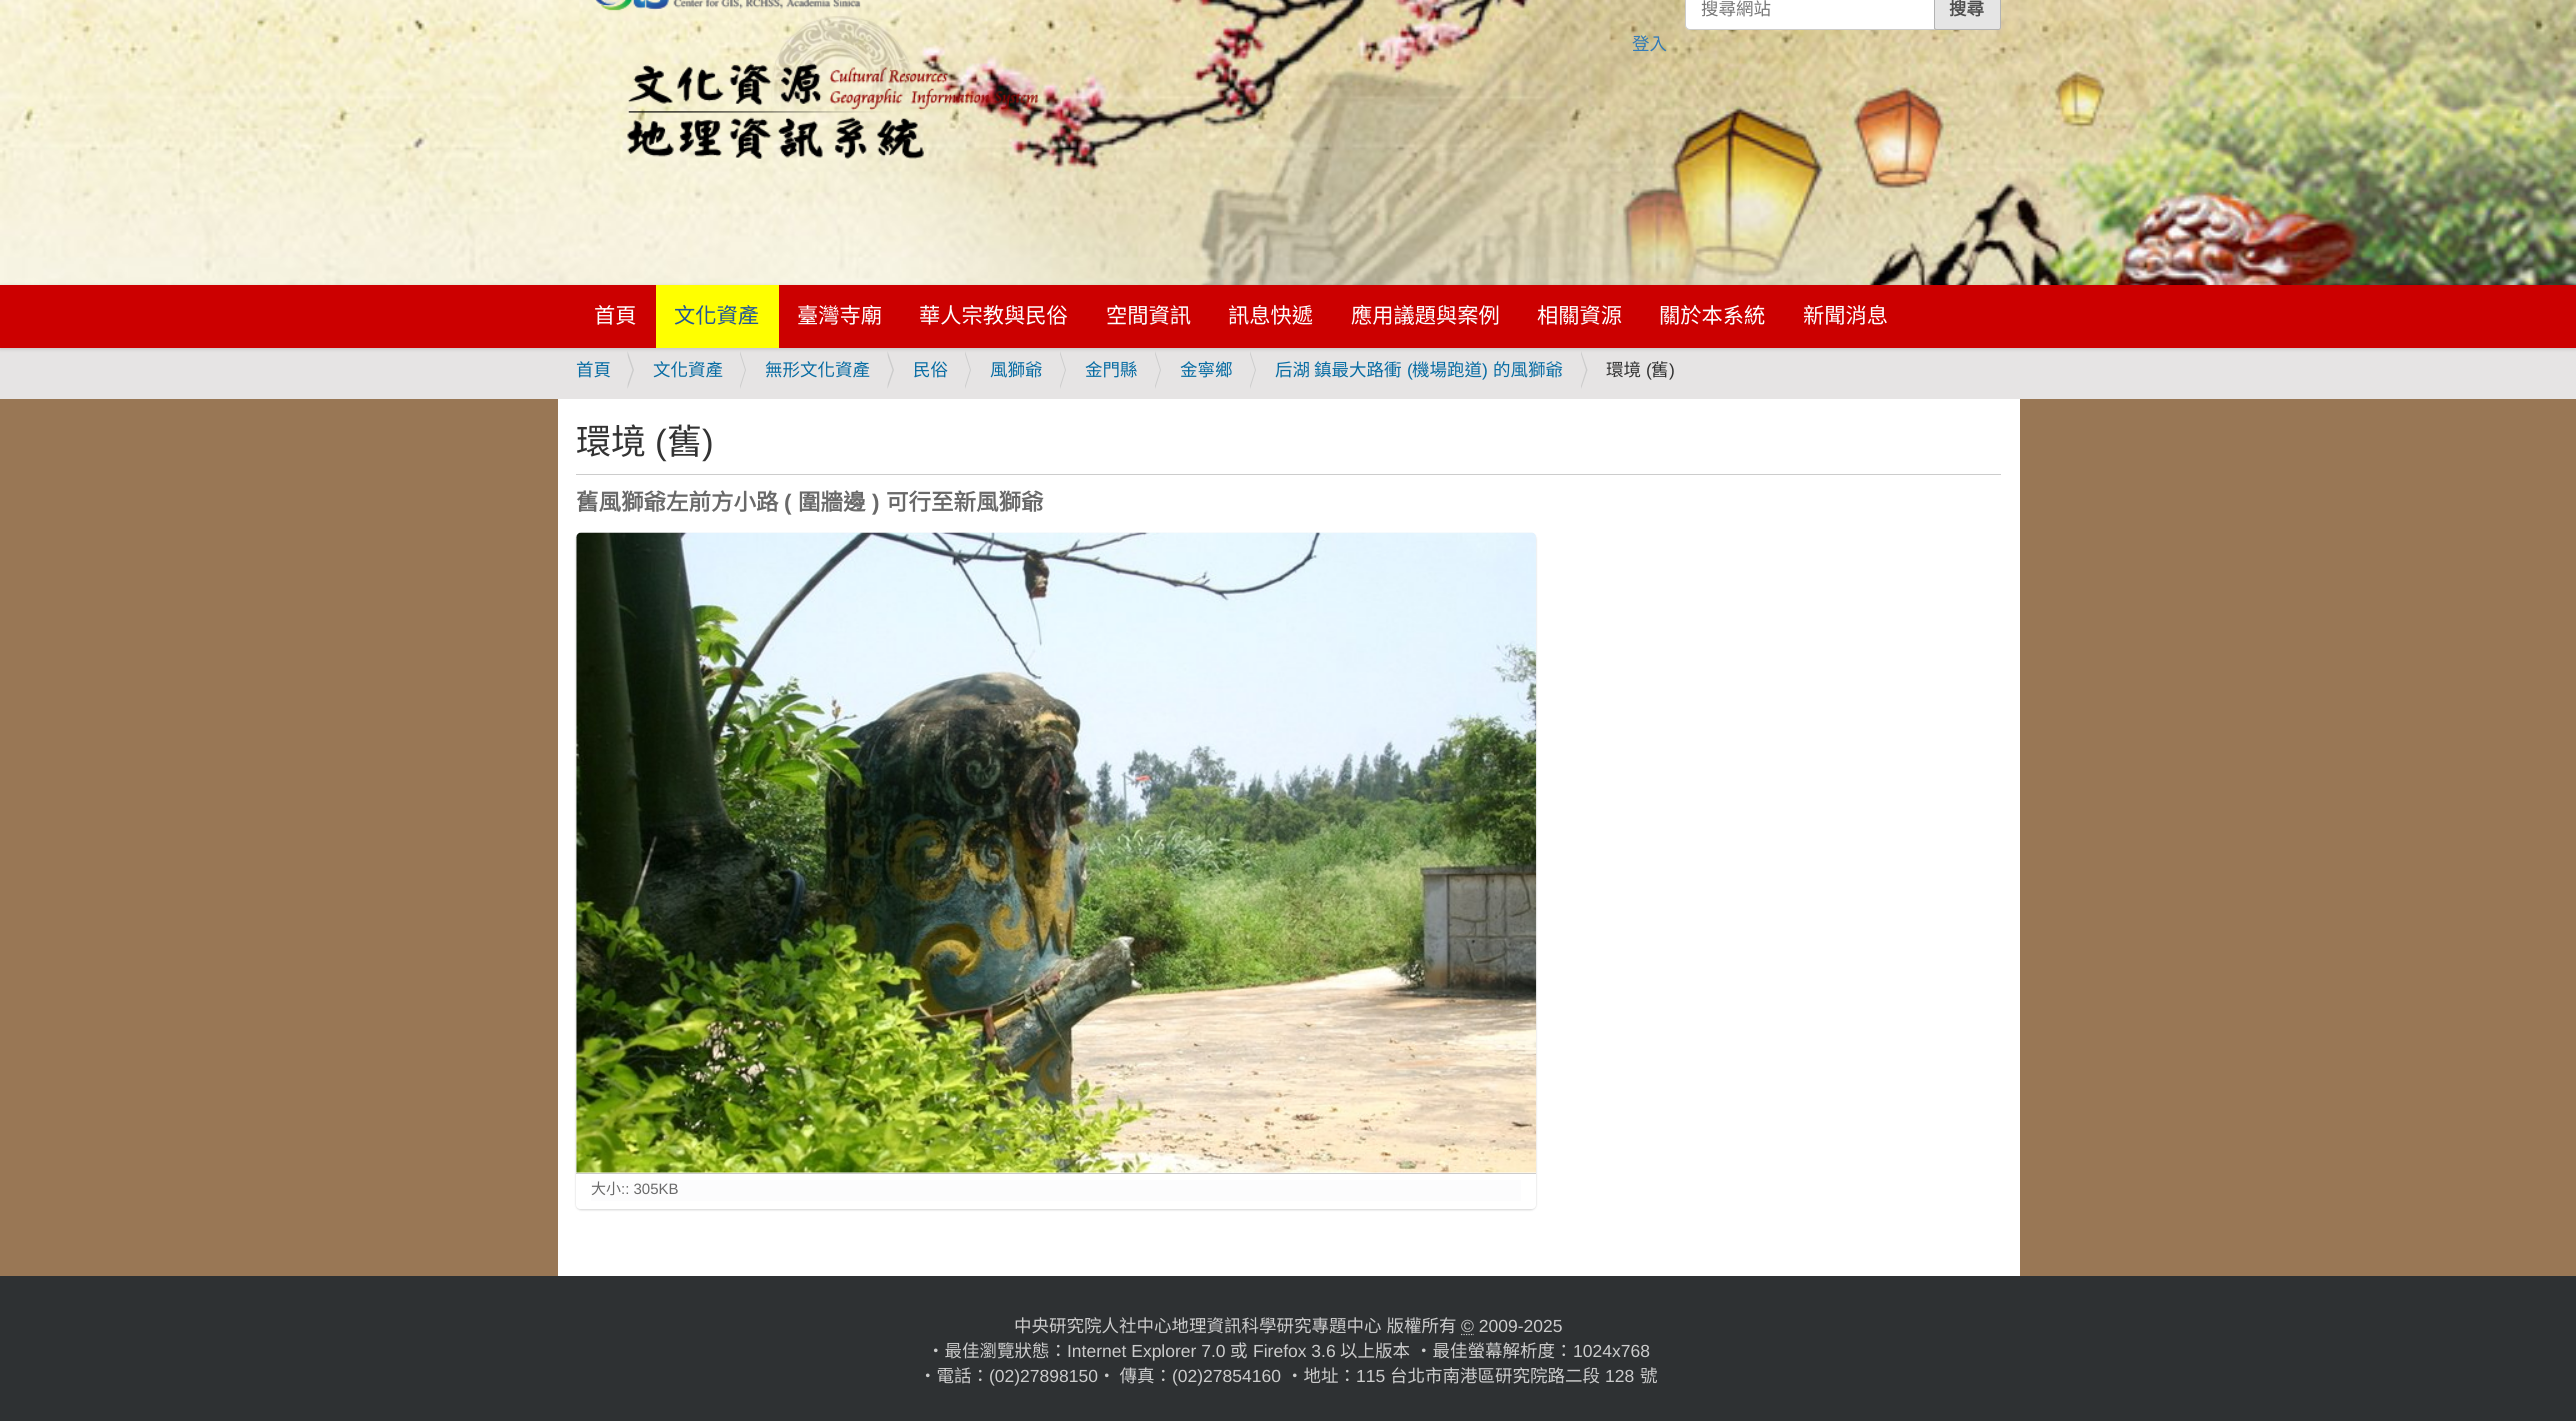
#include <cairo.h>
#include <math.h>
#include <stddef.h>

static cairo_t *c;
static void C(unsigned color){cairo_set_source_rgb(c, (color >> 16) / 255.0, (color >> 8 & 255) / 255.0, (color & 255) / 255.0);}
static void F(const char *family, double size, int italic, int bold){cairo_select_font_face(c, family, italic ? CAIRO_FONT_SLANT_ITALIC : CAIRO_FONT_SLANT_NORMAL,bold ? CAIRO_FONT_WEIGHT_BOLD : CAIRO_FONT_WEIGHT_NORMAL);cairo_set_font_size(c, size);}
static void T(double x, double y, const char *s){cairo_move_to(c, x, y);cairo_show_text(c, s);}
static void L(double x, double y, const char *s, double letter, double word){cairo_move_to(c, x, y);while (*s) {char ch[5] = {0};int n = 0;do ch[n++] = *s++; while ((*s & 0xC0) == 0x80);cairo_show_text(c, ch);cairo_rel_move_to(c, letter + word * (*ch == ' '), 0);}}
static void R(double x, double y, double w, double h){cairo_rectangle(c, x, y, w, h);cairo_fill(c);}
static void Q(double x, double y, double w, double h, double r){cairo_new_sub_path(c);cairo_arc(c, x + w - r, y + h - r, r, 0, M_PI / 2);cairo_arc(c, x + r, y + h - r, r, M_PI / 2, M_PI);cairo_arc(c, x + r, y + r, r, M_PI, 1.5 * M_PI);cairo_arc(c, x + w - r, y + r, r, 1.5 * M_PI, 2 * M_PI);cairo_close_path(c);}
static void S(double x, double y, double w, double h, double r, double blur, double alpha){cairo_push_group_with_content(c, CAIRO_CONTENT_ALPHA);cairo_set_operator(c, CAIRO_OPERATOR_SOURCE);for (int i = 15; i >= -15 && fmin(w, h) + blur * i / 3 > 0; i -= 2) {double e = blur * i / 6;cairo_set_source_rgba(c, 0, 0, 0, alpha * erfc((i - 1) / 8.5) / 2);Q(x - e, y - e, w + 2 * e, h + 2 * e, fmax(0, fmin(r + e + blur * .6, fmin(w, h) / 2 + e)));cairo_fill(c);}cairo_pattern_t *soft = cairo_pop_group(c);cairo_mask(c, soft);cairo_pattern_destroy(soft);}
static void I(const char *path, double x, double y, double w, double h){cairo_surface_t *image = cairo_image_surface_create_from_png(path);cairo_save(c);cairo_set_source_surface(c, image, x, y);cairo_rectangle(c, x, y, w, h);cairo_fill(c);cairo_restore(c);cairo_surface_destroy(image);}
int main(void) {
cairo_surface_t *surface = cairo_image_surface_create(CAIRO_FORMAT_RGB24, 2576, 1421);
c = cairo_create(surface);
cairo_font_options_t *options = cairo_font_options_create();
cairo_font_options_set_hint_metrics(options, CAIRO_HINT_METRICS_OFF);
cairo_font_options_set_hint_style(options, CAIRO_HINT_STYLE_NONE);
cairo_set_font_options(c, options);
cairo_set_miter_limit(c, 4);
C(0x997755);
cairo_paint(c);
I("1.png",0,0,2576,285);
I("2.png",595,0,266,11);
C(0xffffff);
cairo_new_path(c);
cairo_move_to(c,1690,-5.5);
cairo_line_to(c,1934.5,-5.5);
cairo_line_to(c,1934.5,29.5);
cairo_line_to(c,1690,29.5);
cairo_curve_to(c,1687.5,29.5,1685.5,27.5,1685.5,25);
cairo_line_to(c,1685.5,-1);
cairo_curve_to(c,1685.5,-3.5,1687.5,-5.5,1690,-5.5);
cairo_close_path(c);
cairo_fill_preserve(c);
C(0xcccccc);
cairo_set_line_width(c,1);
cairo_stroke(c);
F("Noto Sans CJK TC",17.5,0,0);
C(0x777777);
T(1701,15,"搜尋網站");
C(0xe5e5e5);
Q(1934.5,-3.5,66,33,2);
cairo_fill_preserve(c);
C(0xb2b2b2);
cairo_stroke(c);
F("Noto Sans CJK TC",17.5,0,1);
C(0x4d4d4d);
T(1949,15,"搜尋");
I("3.png",627,16,412,143);
F("Noto Sans CJK TC",17.5,0,0);
C(0x337ab7);
T(1632,50,"登入");
C(0xe6e4e4);
R(0,348,2576,51);
C(0x000000);
S(0,286,2576,63,0,2,.17);
C(0xcc0000);
R(0,285,2576,63);
F("Noto Sans CJK TC",21.25,0,0);
C(0xffffff);
T(594,323,"首頁");
C(0xffff00);
R(656,285,123,63);
C(0x225599);
T(674,323,"文化資產");
C(0xffffff);
T(797,323,"臺灣寺廟");
T(919,323,"華人宗教與民俗");
T(1106,323,"空間資訊");
T(1228,323,"訊息快遞");
T(1351,323,"應用議題與案例");
T(1537,323,"相關資源");
T(1659,323,"關於本系統");
T(1803,323,"新聞消息");
F("Noto Sans CJK TC",17.5,0,0);
C(0x086ca3);
T(576,376,"首頁");
C(0xcccccc);
cairo_new_path(c);
cairo_move_to(c,627.5,389);
cairo_line_to(c,627.5,351);
cairo_line_to(c,634,370);
cairo_close_path(c);
cairo_fill(c);
C(0xe6e4e4);
cairo_new_path(c);
cairo_move_to(c,626,389);
cairo_line_to(c,626,351);
cairo_line_to(c,632.5,370);
cairo_close_path(c);
cairo_fill(c);
C(0x086ca3);
T(653,376,"文化資產");
C(0xcccccc);
cairo_new_path(c);
cairo_move_to(c,740,389);
cairo_line_to(c,740,351);
cairo_line_to(c,746,370);
cairo_close_path(c);
cairo_fill(c);
C(0xe6e4e4);
cairo_new_path(c);
cairo_move_to(c,739,389);
cairo_line_to(c,739,351);
cairo_line_to(c,745,370);
cairo_close_path(c);
cairo_fill(c);
C(0x086ca3);
T(765,376,"無形文化資產");
C(0xcccccc);
cairo_new_path(c);
cairo_move_to(c,887.5,389);
cairo_line_to(c,887.5,351);
cairo_line_to(c,894,370);
cairo_close_path(c);
cairo_fill(c);
C(0xe6e4e4);
cairo_new_path(c);
cairo_move_to(c,886,389);
cairo_line_to(c,886,351);
cairo_line_to(c,892.5,370);
cairo_close_path(c);
cairo_fill(c);
C(0x086ca3);
T(913,376,"民俗");
C(0xcccccc);
cairo_new_path(c);
cairo_move_to(c,965,389);
cairo_line_to(c,965,351);
cairo_line_to(c,971,370);
cairo_close_path(c);
cairo_fill(c);
C(0xe6e4e4);
cairo_new_path(c);
cairo_move_to(c,964,389);
cairo_line_to(c,964,351);
cairo_line_to(c,970,370);
cairo_close_path(c);
cairo_fill(c);
C(0x086ca3);
T(990,376,"風獅爺");
C(0xcccccc);
cairo_new_path(c);
cairo_move_to(c,1060,389);
cairo_line_to(c,1060,351);
cairo_line_to(c,1066,370);
cairo_close_path(c);
cairo_fill(c);
C(0xe6e4e4);
cairo_new_path(c);
cairo_move_to(c,1059,389);
cairo_line_to(c,1059,351);
cairo_line_to(c,1065,370);
cairo_close_path(c);
cairo_fill(c);
C(0x086ca3);
T(1085,376,"金門縣");
C(0xcccccc);
cairo_new_path(c);
cairo_move_to(c,1155,389);
cairo_line_to(c,1155,351);
cairo_line_to(c,1161,370);
cairo_close_path(c);
cairo_fill(c);
C(0xe6e4e4);
cairo_new_path(c);
cairo_move_to(c,1154,389);
cairo_line_to(c,1154,351);
cairo_line_to(c,1160,370);
cairo_close_path(c);
cairo_fill(c);
C(0x086ca3);
T(1180,376,"金寧鄉");
C(0xcccccc);
cairo_new_path(c);
cairo_move_to(c,1250,389);
cairo_line_to(c,1250,351);
cairo_line_to(c,1256,370);
cairo_close_path(c);
cairo_fill(c);
C(0xe6e4e4);
cairo_new_path(c);
cairo_move_to(c,1249,389);
cairo_line_to(c,1249,351);
cairo_line_to(c,1255,370);
cairo_close_path(c);
cairo_fill(c);
C(0x086ca3);
T(1275,376,"后湖 鎮最大路衝");
F("Liberation Sans",17.5,0,0);
T(1407,376,"(");
F("Noto Sans CJK TC",17.5,0,0);
T(1412,376,"機場跑道");
F("Liberation Sans",17.5,0,0);
T(1482,376,")");
F("Noto Sans CJK TC",17.5,0,0);
T(1493,376,"的風獅爺");
C(0xcccccc);
cairo_new_path(c);
cairo_move_to(c,1581,389);
cairo_line_to(c,1581,351);
cairo_line_to(c,1587.5,370);
cairo_close_path(c);
cairo_fill(c);
C(0xe6e4e4);
cairo_new_path(c);
cairo_move_to(c,1580,389);
cairo_line_to(c,1580,351);
cairo_line_to(c,1586,370);
cairo_close_path(c);
cairo_fill(c);
C(0x333333);
T(1606,376,"環境");
F("Liberation Sans",17.5,0,0);
T(1646,376,"(");
F("Noto Sans CJK TC",17.5,0,0);
T(1651,376,"舊");
F("Liberation Sans",17.5,0,0);
T(1669,376,")");
C(0xffffff);
R(558,399,1462,877);
C(0xcccccc);
R(576,474,1425,1);
F("Noto Sans CJK TC",35,0,0);
C(0x333333);
T(576,454,"環境");
F("Liberation Sans",35,0,0);
T(655,454,"(");
F("Noto Sans CJK TC",35,0,0);
T(667,454,"舊");
F("Liberation Sans",35,0,0);
T(702,454,")");
F("Noto Sans CJK TC",22.5,0,1);
C(0x696969);
T(576,510,"舊風獅爺左前方小路");
F("Liberation Sans",22.5,0,1);
T(784,510,"(");
F("Noto Sans CJK TC",22.5,0,1);
T(798,510,"圍牆邊");
F("Liberation Sans",22.5,0,1);
T(872,510,")");
F("Noto Sans CJK TC",22.5,0,1);
T(886,510,"可行至新風獅爺");
cairo_save(c);
cairo_set_fill_rule(c,CAIRO_FILL_RULE_EVEN_ODD);
cairo_new_path(c);
cairo_move_to(c,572,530);
cairo_line_to(c,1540,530);
cairo_line_to(c,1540,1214);
cairo_line_to(c,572,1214);
cairo_close_path(c);
cairo_move_to(c,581,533);
cairo_line_to(c,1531,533);
cairo_curve_to(c,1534,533,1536,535,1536,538);
cairo_line_to(c,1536,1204);
cairo_curve_to(c,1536,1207,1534,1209,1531,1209);
cairo_line_to(c,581,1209);
cairo_curve_to(c,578,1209,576,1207,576,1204);
cairo_line_to(c,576,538);
cairo_curve_to(c,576,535,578,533,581,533);
cairo_close_path(c);
cairo_clip(c);
C(0x000000);
S(576,534,960,676,5,1,.17);
cairo_restore(c);
C(0xcccccc);
R(576,1173,960,1);
I("4.png",576,532,961,641);
C(0xfcfcfd);
R(591,1180,930,21);
F("Noto Sans CJK TC",15,0,0);
C(0x696969);
T(591,1194,"大小");
F("Liberation Sans",15,0,0);
T(621,1194,":: 305KB");
C(0x2e3133);
R(0,1276,2576,145);
F("Noto Sans CJK TC",17.5,0,0);
C(0xcccccc);
L(1014,1332,"中央研究院人社中心地理資訊科學研究專題中心 版權所有",0,1);
F("Liberation Sans",17.5,0,0);
T(1461,1332,"© 2009-2025");
cairo_new_path(c);
cairo_move_to(c,1461,1334.5);
cairo_line_to(c,1474,1334.5);
cairo_set_line_width(c,1.2);
cairo_set_dash(c,(double[]){1.25,1.25},2,0);
cairo_stroke(c);
F("Noto Sans CJK TC",17.5,0,0);
T(927,1357,"‧最佳瀏覽狀態：");
F("Liberation Sans",17.5,0,0);
T(1067,1357,"Internet Explorer 7.0");
F("Noto Sans CJK TC",17.5,0,0);
T(1230,1357,"或");
F("Liberation Sans",17.5,0,0);
T(1253,1357,"Firefox 3.6");
F("Noto Sans CJK TC",17.5,0,0);
T(1340,1357,"以上版本");
T(1415,1357,"‧最佳螢幕解析度：");
F("Liberation Sans",17.5,0,0);
T(1573,1357,"1024x768");
F("Noto Sans CJK TC",17.5,0,0);
T(919,1382,"‧電話：");
F("Liberation Sans",17.5,0,0);
T(989,1382,"(02)27898150");
F("Noto Sans CJK TC",17.5,0,0);
T(1098,1382,"‧ 傳真：");
F("Liberation Sans",17.5,0,0);
T(1172,1382,"(02)27854160");
F("Noto Sans CJK TC",17.5,0,0);
T(1286,1382,"‧地址：");
F("Liberation Sans",17.5,0,0);
T(1356,1382,"115");
F("Noto Sans CJK TC",17.5,0,0);
T(1390,1382,"台北市南港區研究院路二段");
F("Liberation Sans",17.5,0,0);
T(1605,1382,"128");
F("Noto Sans CJK TC",17.5,0,0);
T(1640,1382,"號");
cairo_surface_write_to_png(surface, "o.png");
cairo_font_options_destroy(options);
cairo_destroy(c);
cairo_surface_destroy(surface);
return 0;
}
